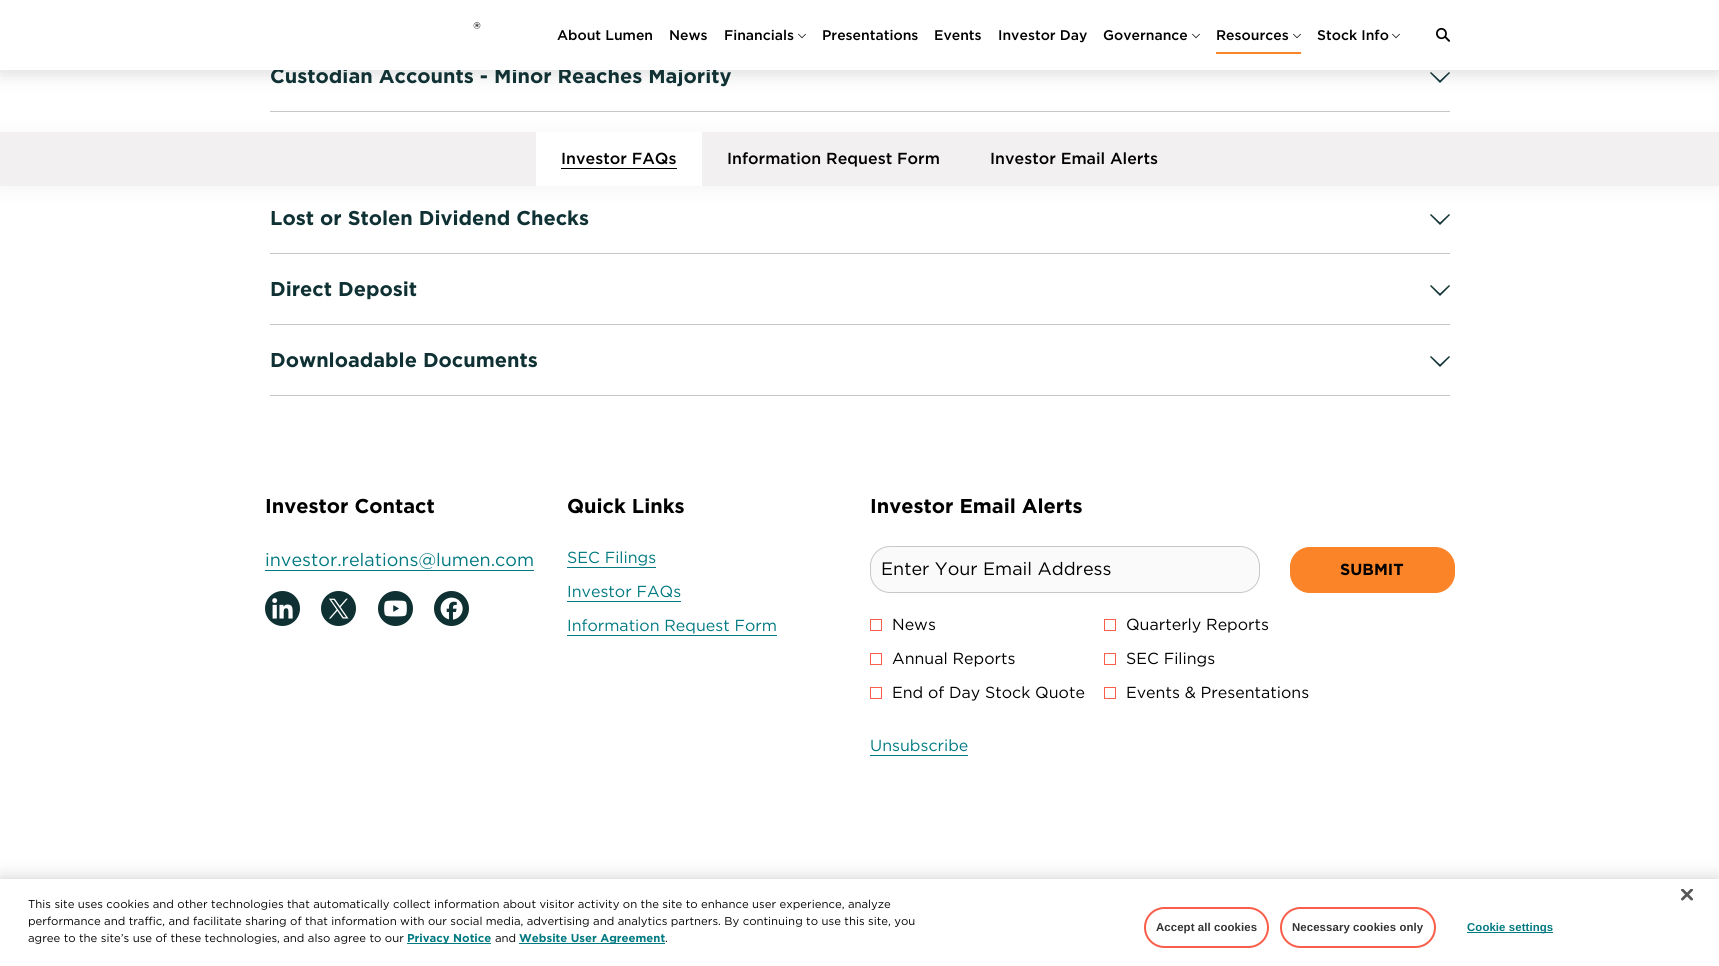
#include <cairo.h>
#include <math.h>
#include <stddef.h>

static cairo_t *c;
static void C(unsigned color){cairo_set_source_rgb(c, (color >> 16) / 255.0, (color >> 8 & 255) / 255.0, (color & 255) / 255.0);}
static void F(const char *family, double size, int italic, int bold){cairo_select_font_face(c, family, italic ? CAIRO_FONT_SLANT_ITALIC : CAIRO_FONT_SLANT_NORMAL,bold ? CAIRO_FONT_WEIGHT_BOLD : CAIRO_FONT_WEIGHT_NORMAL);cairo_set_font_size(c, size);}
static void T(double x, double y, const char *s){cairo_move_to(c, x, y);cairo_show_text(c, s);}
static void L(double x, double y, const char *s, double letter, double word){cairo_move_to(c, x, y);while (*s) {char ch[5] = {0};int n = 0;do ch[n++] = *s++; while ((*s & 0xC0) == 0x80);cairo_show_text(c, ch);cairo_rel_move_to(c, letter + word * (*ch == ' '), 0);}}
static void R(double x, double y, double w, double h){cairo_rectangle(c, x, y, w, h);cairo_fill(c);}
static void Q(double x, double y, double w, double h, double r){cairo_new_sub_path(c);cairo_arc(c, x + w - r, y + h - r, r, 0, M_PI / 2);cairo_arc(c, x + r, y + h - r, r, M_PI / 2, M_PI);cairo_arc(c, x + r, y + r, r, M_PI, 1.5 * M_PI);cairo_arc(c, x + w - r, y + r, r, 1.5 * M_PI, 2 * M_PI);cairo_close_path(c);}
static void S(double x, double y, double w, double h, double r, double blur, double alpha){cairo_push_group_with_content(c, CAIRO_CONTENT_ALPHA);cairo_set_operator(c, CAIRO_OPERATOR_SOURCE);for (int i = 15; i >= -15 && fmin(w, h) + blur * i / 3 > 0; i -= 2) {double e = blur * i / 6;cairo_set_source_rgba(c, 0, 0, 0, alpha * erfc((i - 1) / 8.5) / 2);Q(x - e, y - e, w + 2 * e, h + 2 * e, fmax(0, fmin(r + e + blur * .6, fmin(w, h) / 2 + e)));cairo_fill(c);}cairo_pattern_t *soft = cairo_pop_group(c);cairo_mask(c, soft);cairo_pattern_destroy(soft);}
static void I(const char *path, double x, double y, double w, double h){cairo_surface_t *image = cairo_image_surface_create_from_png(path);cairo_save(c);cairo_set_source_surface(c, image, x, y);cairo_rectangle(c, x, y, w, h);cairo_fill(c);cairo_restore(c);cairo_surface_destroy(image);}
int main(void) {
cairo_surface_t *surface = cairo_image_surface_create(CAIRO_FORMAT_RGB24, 1719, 966);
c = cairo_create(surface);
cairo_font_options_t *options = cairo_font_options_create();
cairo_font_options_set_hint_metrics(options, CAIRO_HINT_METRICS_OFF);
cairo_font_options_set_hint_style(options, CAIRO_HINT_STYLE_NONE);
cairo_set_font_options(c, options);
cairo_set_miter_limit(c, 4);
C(0xffffff);
cairo_paint(c);
F("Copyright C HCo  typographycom",20,0,0);
C(0x0f3133);
T(270,83,"Custodian Accounts - Minor Reaches Majority");
cairo_new_path(c);
cairo_move_to(c,1450,73);
cairo_line_to(c,1449,72);
cairo_line_to(c,1440,80.5);
cairo_line_to(c,1431,72);
cairo_line_to(c,1430,73);
cairo_line_to(c,1440,83);
cairo_close_path(c);
cairo_fill(c);
C(0xc7c7c7);
R(270,111,1180,1);
C(0x0f3133);
T(270,225,"Lost or Stolen Dividend Checks");
cairo_new_path(c);
cairo_move_to(c,1450,215);
cairo_line_to(c,1449,214);
cairo_line_to(c,1440,222.5);
cairo_line_to(c,1431,214);
cairo_line_to(c,1430,215);
cairo_line_to(c,1440,225);
cairo_close_path(c);
cairo_fill(c);
C(0xc7c7c7);
R(270,253,1180,1);
C(0x0f3133);
T(270,296,"Direct Deposit");
cairo_new_path(c);
cairo_move_to(c,1450,286);
cairo_line_to(c,1449,285);
cairo_line_to(c,1440,293.5);
cairo_line_to(c,1431,285);
cairo_line_to(c,1430,286);
cairo_line_to(c,1440,296);
cairo_close_path(c);
cairo_fill(c);
C(0xc7c7c7);
R(270,324,1180,1);
R(270,395,1180,1);
C(0x0f3133);
T(270,367,"Downloadable Documents");
cairo_new_path(c);
cairo_move_to(c,1450,357);
cairo_line_to(c,1449,356);
cairo_line_to(c,1440,364.5);
cairo_line_to(c,1431,356);
cairo_line_to(c,1430,357);
cairo_line_to(c,1440,367);
cairo_close_path(c);
cairo_fill(c);
C(0x283033);
S(0,2,1719,70,0,10,.2);
C(0xffffff);
R(0,0,1719,70);
I("1.png",473,22,8,7);
F("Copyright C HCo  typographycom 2 Light",14,0,0);
C(0x000000);
T(557,40,"About Lumen");
T(669,40,"News");
T(724,40,"Financials");
I("2.png",798,33,8,6);
T(822,40,"Presentations");
T(934,40,"Events");
T(998,40,"Investor Day");
T(1103,40,"Governance");
I("2.png",1192,33,8,6);
C(0xfb8429);
R(1216,52,85,2);
C(0x000000);
T(1216,40,"Resources");
I("2.png",1293,33,8,6);
T(1317,40,"Stock Info");
I("2.png",1392,33,8,6);
I("3.png",1436,27,14,15);
C(0x000000);
S(0,134,1719,54,0,10,.05);
C(0xf2f0f1);
R(0,132,1719,54);
C(0xffffff);
R(536,132,166,54);
F("Copyright C HCo  typographycom 2 Light",16,0,0);
C(0x000000);
T(561,164,"Investor FAQs");
R(561,168,116,1);
T(727,164,"Information Request Form");
T(990,164,"Investor Email Alerts");
F("Copyright C HCo  typographycom",20,0,0);
T(265,513,"Investor Contact");
F("Copyright C HCo  typographycom Light",18,0,0);
C(0x007981);
T(265,566,"investor.relations@lumen.com");
R(265,570,269,1);
I("4.png",265,591,35,35);
I("5.png",321,591,35,35);
I("6.png",378,591,35,35);
I("7.png",434,591,35,35);
F("Copyright C HCo  typographycom",20,0,0);
C(0x000000);
T(567,513,"Quick Links");
F("Copyright C HCo  typographycom Light",16,0,0);
C(0x007981);
T(567,563,"SEC Filings");
R(567,567,89,1);
T(567,597,"Investor FAQs");
R(567,601,114,1);
T(567,631,"Information Request Form");
R(567,635,210,1);
F("Copyright C HCo  typographycom",20,0,0);
C(0x000000);
T(870,513,"Investor Email Alerts");
C(0xfafafa);
Q(870.5,546.5,389,46,19.5);
cairo_fill_preserve(c);
C(0xc7c7c7);
cairo_set_line_width(c,1);
cairo_stroke(c);
F("Copyright C HCo  typographycom Light",18,0,0);
C(0x000000);
T(881,575,"Enter Your Email Address");
C(0xfb8429);
Q(1290.5,547.5,164,45,19.5);
cairo_fill_preserve(c);
cairo_stroke(c);
F("Copyright C HCo  typographycom",16,0,0);
C(0x000000);
T(1340,575,"SUBMIT");
cairo_rectangle(c,870.5,619.5,11,11);
C(0xf95e4a);
cairo_stroke(c);
F("Copyright C HCo  typographycom Light",16,0,0);
C(0x000000);
T(892,630,"News");
cairo_rectangle(c,1104.5,619.5,11,11);
C(0xf95e4a);
cairo_stroke(c);
C(0x000000);
T(1126,630,"Quarterly Reports");
cairo_rectangle(c,870.5,653.5,11,11);
C(0xf95e4a);
cairo_stroke(c);
C(0x000000);
T(892,664,"Annual Reports");
cairo_rectangle(c,1104.5,653.5,11,11);
C(0xf95e4a);
cairo_stroke(c);
C(0x000000);
T(1126,664,"SEC Filings");
cairo_rectangle(c,870.5,687.5,11,11);
C(0xf95e4a);
cairo_stroke(c);
C(0x000000);
T(892,698,"End of Day Stock Quote");
cairo_rectangle(c,1104.5,687.5,11,11);
C(0xf95e4a);
cairo_stroke(c);
C(0x000000);
T(1126,698,"Events & Presentations");
C(0x007981);
T(870,751,"Unsubscribe");
R(870,755,98,1);
C(0x000000);
S(0,879,1719,87,0,9,.2);
C(0xffffff);
R(0,879,1719,87);
I("8.png",1681,889,12,12);
F("Copyright C HCo  typographycom Light",11.38,0,0);
C(0x000000);
T(28,908,"This site uses cookies and other technologies that automatically collect information about visitor activity on the site to enhance user experience, analyze");
T(28,925,"performance and traffic, and facilitate sharing of that information with our social media, advertising and analytics partners. By continuing to use this site, you");
T(28,942,"agree to the site’s use of these technologies, and also agree to our");
C(0x007981);
R(407,943,84,1);
F("Copyright C HCo  typographycom",11.38,0,0);
T(407,942,"Privacy Notice");
F("Copyright C HCo  typographycom Light",11.38,0,0);
C(0x000000);
T(495,942,"and");
C(0x007981);
R(519,943,146,1);
F("Copyright C HCo  typographycom",11.38,0,0);
T(519,942,"Website User Agreement");
F("Copyright C HCo  typographycom Light",11.38,0,0);
C(0x000000);
T(665,942,".");
Q(1145,908,123,39,19.5);
C(0xf95e4a);
cairo_set_line_width(c,2);
cairo_stroke(c);
F("Liberation Sans",11.38,0,1);
C(0x333333);
L(1156,931,"Accept all cookies",.1,0);
Q(1281,908,154,39,19.5);
C(0xf95e4a);
cairo_stroke(c);
C(0x333333);
L(1292,931,"Necessary cookies only",.1,0);
C(0x007981);
R(1467,932,86,1);
L(1467,931,"Cookie settings",.1,0);
cairo_surface_write_to_png(surface, "o.png");
cairo_font_options_destroy(options);
cairo_destroy(c);
cairo_surface_destroy(surface);
return 0;
}
